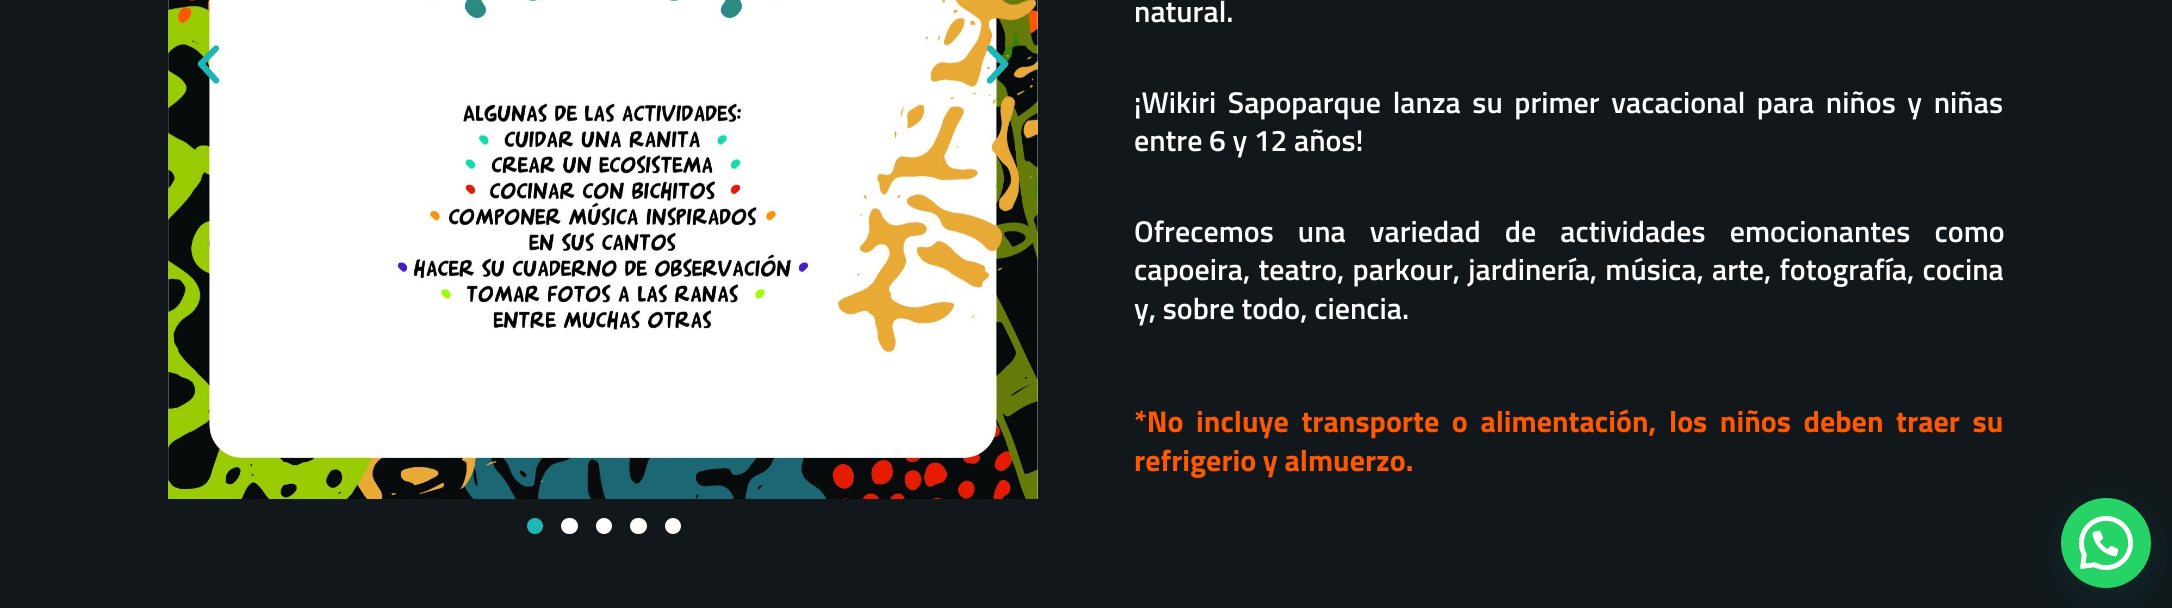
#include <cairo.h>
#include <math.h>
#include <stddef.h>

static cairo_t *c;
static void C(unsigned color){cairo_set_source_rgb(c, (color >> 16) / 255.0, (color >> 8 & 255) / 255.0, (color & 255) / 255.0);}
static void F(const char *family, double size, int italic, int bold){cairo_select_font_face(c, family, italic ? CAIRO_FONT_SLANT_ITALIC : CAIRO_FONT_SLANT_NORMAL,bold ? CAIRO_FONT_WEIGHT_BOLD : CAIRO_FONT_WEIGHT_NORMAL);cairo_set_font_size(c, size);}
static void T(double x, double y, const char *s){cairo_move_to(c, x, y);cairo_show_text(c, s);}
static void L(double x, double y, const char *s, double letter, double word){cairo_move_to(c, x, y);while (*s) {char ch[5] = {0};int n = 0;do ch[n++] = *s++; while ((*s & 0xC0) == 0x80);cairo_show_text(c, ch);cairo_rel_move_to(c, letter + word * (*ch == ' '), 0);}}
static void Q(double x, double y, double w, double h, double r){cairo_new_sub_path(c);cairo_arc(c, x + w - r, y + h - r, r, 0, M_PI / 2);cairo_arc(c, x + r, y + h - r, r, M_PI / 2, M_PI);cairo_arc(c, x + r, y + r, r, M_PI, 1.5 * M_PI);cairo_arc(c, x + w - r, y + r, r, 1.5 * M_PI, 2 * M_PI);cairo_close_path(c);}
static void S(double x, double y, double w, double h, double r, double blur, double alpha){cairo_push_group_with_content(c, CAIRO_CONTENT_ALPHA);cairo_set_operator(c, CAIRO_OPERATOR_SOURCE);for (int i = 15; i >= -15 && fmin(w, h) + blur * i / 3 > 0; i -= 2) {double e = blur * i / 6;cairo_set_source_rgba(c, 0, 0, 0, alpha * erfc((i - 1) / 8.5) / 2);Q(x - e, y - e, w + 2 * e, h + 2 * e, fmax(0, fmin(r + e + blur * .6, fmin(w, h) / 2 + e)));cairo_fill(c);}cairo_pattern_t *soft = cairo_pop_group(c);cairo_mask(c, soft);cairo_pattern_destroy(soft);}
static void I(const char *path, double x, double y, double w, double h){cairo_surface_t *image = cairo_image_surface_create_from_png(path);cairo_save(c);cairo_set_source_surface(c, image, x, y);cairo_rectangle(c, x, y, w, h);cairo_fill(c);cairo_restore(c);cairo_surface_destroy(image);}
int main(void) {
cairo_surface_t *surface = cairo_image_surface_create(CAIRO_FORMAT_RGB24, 2172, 608);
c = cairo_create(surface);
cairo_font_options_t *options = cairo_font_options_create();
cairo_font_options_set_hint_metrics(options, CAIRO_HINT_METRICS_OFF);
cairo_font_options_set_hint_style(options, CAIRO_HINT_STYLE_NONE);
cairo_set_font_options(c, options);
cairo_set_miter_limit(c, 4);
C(0x11171b);
cairo_paint(c);
I("1.png",168,0,870,499);
I("2.png",197,45,23,39);
I("3.png",986,45,23,39);
C(0x1fb6b7);
cairo_arc(c,535,526,8,0,2 * M_PI);
cairo_fill(c);
C(0xffffff);
Q(561,518,17,16,8);
cairo_fill(c);
cairo_arc(c,604,526,8,0,2 * M_PI);
cairo_fill(c);
Q(630,518,17,16,8);
cairo_fill(c);
cairo_arc(c,673,526,8,0,2 * M_PI);
cairo_fill(c);
F("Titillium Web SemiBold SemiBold",30,0,0);
T(1134,22,"natural.");
L(1134,113,"¡Wikiri Sapoparque lanza su primer vacacional para niños y niñas",0,5);
T(1134,151,"entre 6 y 12 años!");
L(1134,242,"Ofrecemos una variedad de actividades emocionantes como",0,17.5);
L(1134,280,"capoeira, teatro, parkour, jardinería, música, arte, fotografía, cocina",0,1.5);
T(1134,319,"y, sobre todo, ciencia.");
F("Titillium Web",30,0,1);
C(0xfc5901);
L(1134,432,"*No incluye transporte o alimentación, los niños deben traer su",0,6);
T(1134,471,"refrigerio y almuerzo.");
C(0x075e54);
S(2063,507,90,90,45,18,.24);
C(0x25d366);
cairo_arc(c,2106,543,45,0,2 * M_PI);
cairo_fill(c);
I("4.png",2079,516,54,54);
cairo_surface_write_to_png(surface, "o.png");
cairo_font_options_destroy(options);
cairo_destroy(c);
cairo_surface_destroy(surface);
return 0;
}
